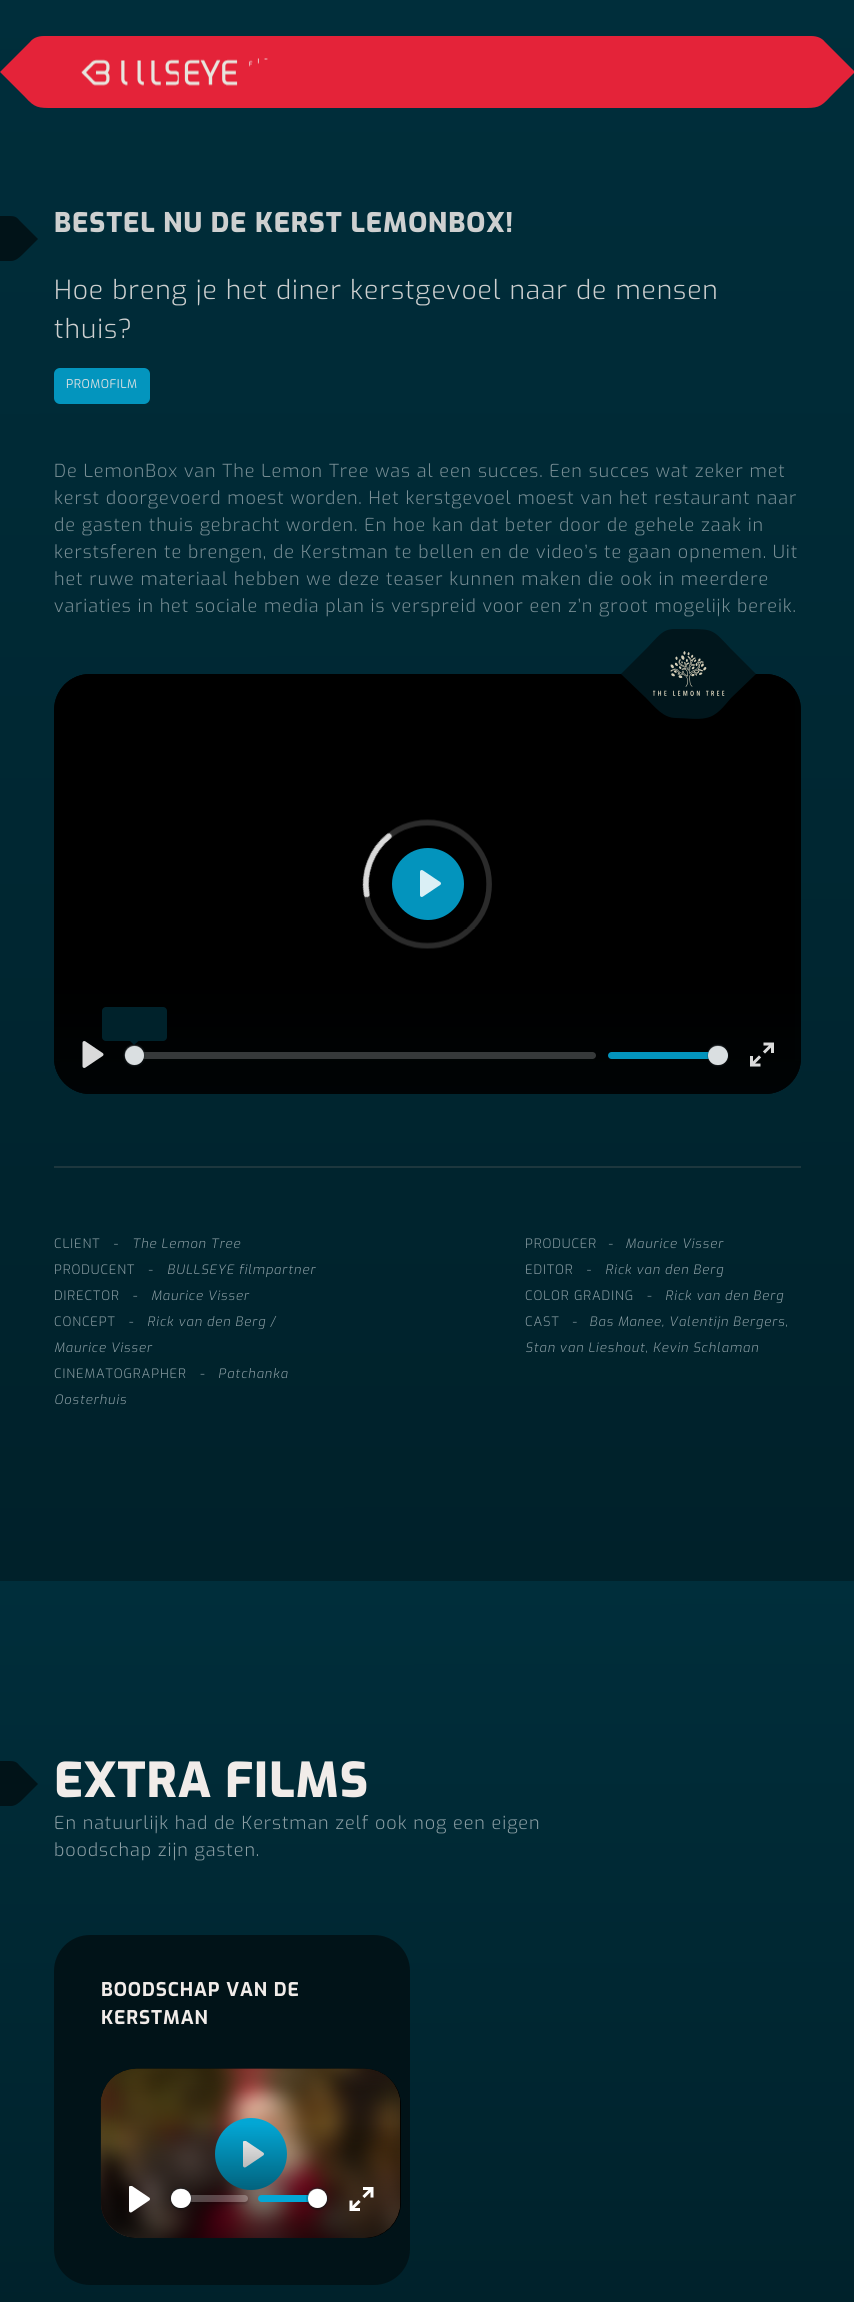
#include <cairo.h>
#include <math.h>
#include <stddef.h>

static cairo_t *c;
static void C(unsigned color){cairo_set_source_rgb(c, (color >> 16) / 255.0, (color >> 8 & 255) / 255.0, (color & 255) / 255.0);}
static void F(const char *family, double size, int italic, int bold){cairo_select_font_face(c, family, italic ? CAIRO_FONT_SLANT_ITALIC : CAIRO_FONT_SLANT_NORMAL,bold ? CAIRO_FONT_WEIGHT_BOLD : CAIRO_FONT_WEIGHT_NORMAL);cairo_set_font_size(c, size);}
static void L(double x, double y, const char *s, double letter, double word){cairo_move_to(c, x, y);while (*s) {char ch[5] = {0};int n = 0;do ch[n++] = *s++; while ((*s & 0xC0) == 0x80);cairo_show_text(c, ch);cairo_rel_move_to(c, letter + word * (*ch == ' '), 0);}}
static void R(double x, double y, double w, double h){cairo_rectangle(c, x, y, w, h);cairo_fill(c);}
static void Q(double x, double y, double w, double h, double r){cairo_new_sub_path(c);cairo_arc(c, x + w - r, y + h - r, r, 0, M_PI / 2);cairo_arc(c, x + r, y + h - r, r, M_PI / 2, M_PI);cairo_arc(c, x + r, y + r, r, M_PI, 1.5 * M_PI);cairo_arc(c, x + w - r, y + r, r, 1.5 * M_PI, 2 * M_PI);cairo_close_path(c);}
static void S(double x, double y, double w, double h, double r, double blur, double alpha){cairo_push_group_with_content(c, CAIRO_CONTENT_ALPHA);cairo_set_operator(c, CAIRO_OPERATOR_SOURCE);for (int i = 15; i >= -15 && fmin(w, h) + blur * i / 3 > 0; i -= 2) {double e = blur * i / 6;cairo_set_source_rgba(c, 0, 0, 0, alpha * erfc((i - 1) / 8.5) / 2);Q(x - e, y - e, w + 2 * e, h + 2 * e, fmax(0, fmin(r + e + blur * .6, fmin(w, h) / 2 + e)));cairo_fill(c);}cairo_pattern_t *soft = cairo_pop_group(c);cairo_mask(c, soft);cairo_pattern_destroy(soft);}
static void I(const char *path, double x, double y, double w, double h){cairo_surface_t *image = cairo_image_surface_create_from_png(path);cairo_save(c);cairo_set_source_surface(c, image, x, y);cairo_rectangle(c, x, y, w, h);cairo_fill(c);cairo_restore(c);cairo_surface_destroy(image);}
int main(void) {
cairo_surface_t *surface = cairo_image_surface_create(CAIRO_FORMAT_RGB24, 854, 2302);
c = cairo_create(surface);
cairo_font_options_t *options = cairo_font_options_create();
cairo_font_options_set_hint_metrics(options, CAIRO_HINT_METRICS_OFF);
cairo_font_options_set_hint_style(options, CAIRO_HINT_STYLE_NONE);
cairo_set_font_options(c, options);
cairo_set_miter_limit(c, 4);
cairo_pattern_t *gradient;
C(0xffffff);
cairo_paint(c);
gradient = cairo_pattern_create_linear(427,0,428,1581);
cairo_pattern_add_color_stop_rgba(gradient,0,0,0.18,0.231,1);
cairo_pattern_add_color_stop_rgba(gradient,1,0,0.129,0.165,1);
cairo_set_source(c,gradient);
cairo_pattern_destroy(gradient);
R(0,0,854,1581);
C(0xe42339);
cairo_new_path(c);
cairo_move_to(c,44,36);
cairo_line_to(c,72,36);
cairo_line_to(c,72,108);
cairo_line_to(c,53,108);
cairo_curve_to(c,38,108,35,108,25,97);
cairo_line_to(c,0,72);
cairo_line_to(c,30,42);
cairo_curve_to(c,33,38,38,36,44,36);
cairo_close_path(c);
cairo_fill(c);
R(72,36,711,72);
I("1.png",81,58,187,28);
cairo_new_path(c);
cairo_move_to(c,811,36);
cairo_line_to(c,783,36);
cairo_line_to(c,783,108);
cairo_line_to(c,802,108);
cairo_curve_to(c,817,108,820,108,830,97);
cairo_line_to(c,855,72);
cairo_line_to(c,825,42);
cairo_curve_to(c,822,38,817,36,811,36);
cairo_close_path(c);
cairo_fill(c);
cairo_save(c);
cairo_rectangle(c,0,216,39,45);
cairo_clip(c);
C(0x011318);
cairo_new_path(c);
cairo_move_to(c,10,216);
cairo_line_to(c,0,216);
cairo_line_to(c,0,261);
cairo_curve_to(c,12,261,14,263,23,254);
cairo_line_to(c,38,239);
cairo_line_to(c,19,220);
cairo_curve_to(c,17,217,14,216,10,216);
cairo_close_path(c);
cairo_fill(c);
cairo_restore(c);
F("Exo ExtraBold",27,0,0);
C(0xced0d0);
L(54,232,"BESTEL NU DE KERST LEMONBOX!",.9,0);
F("Exo Light",26.4,0,0);
L(54,299,"Hoe breng je het diner kerstgevoel naar de mensen",.9,0);
L(54,338,"thuis?",.9,0);
C(0x0395be);
Q(54,368,96,36,6);
cairo_fill(c);
F("Exo",12,0,0);
C(0xdae0e2);
L(66,388,"PROMOFILM",.5,0);
F("Exo Light",18,0,0);
C(0x798f96);
L(54,477,"De LemonBox van The Lemon Tree was al een succes. Een succes wat zeker met",.9,0);
L(54,504,"kerst doorgevoerd moest worden. Het kerstgevoel moest van het restaurant naar",.9,0);
L(54,531,"de gasten thuis gebracht worden. En hoe kan dat beter door de gehele zaak in",.9,0);
L(54,558,"kerstsferen te brengen, de Kerstman te bellen en de video’s te gaan opnemen. Uit",.9,0);
L(54,585,"het ruwe materiaal hebben we deze teaser kunnen maken die ook in meerdere",.9,0);
L(54,612,"variaties in het sociale media plan is verspreid voor een z’n groot mogelijk bereik.",.9,0);
cairo_set_source_rgba(c,0,0,0,0.86);
Q(54,674,747,420,36);
cairo_fill(c);
Q(54,674,747,420,36);
cairo_fill(c);
I("3.png",60,674,735,392);
cairo_save(c);
cairo_rectangle(c,621,629,135,90);
cairo_clip(c);
C(0x01161c);
cairo_new_path(c);
cairo_move_to(c,676,718);
cairo_curve_to(c,663,718,655,707,646,698);
cairo_line_to(c,621,674);
cairo_line_to(c,646,649);
cairo_curve_to(c,665,629,663,628,689,629);
cairo_curve_to(c,714,629,713,630,731,649);
cairo_line_to(c,756,674);
cairo_line_to(c,731,698);
cairo_curve_to(c,724,706,717,716,706,718);
cairo_curve_to(c,697,720,686,718,676,718);
cairo_close_path(c);
cairo_fill(c);
cairo_restore(c);
I("2.png",653,651,72,45);
C(0x0394bd);
cairo_arc(c,428,884,36,0,2 * M_PI);
cairo_fill(c);
I("4.png",420,870,21,27);
gradient = cairo_pattern_create_linear(428,978,428,1094);
cairo_pattern_add_color_stop_rgba(gradient,0,0,0.02,0.027,0);
cairo_pattern_add_color_stop_rgba(gradient,1,0,0.02,0.027,.7);
cairo_set_source(c,gradient);
cairo_pattern_destroy(gradient);
cairo_new_path(c);
cairo_move_to(c,54,978);
cairo_line_to(c,801,978);
cairo_line_to(c,801,1058);
cairo_curve_to(c,801,1078,785,1094,765,1094);
cairo_line_to(c,90,1094);
cairo_curve_to(c,70,1094,54,1078,54,1058);
cairo_close_path(c);
cairo_fill(c);
I("5.png",82,1041,22,27);
cairo_set_source_rgba(c,0,0.149,0.188,0.9);
Q(102,1007,65,34,4);
cairo_fill(c);
cairo_save(c);
cairo_set_fill_rule(c,CAIRO_FILL_RULE_EVEN_ODD);
cairo_new_path(c);
cairo_move_to(c,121,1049);
cairo_line_to(c,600,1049);
cairo_line_to(c,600,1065);
cairo_line_to(c,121,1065);
cairo_close_path(c);
cairo_move_to(c,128.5,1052);
cairo_line_to(c,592.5,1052);
cairo_curve_to(c,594.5,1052,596,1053.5,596,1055.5);
cairo_curve_to(c,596,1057.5,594.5,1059,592.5,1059);
cairo_line_to(c,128.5,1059);
cairo_curve_to(c,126.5,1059,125,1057.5,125,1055.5);
cairo_curve_to(c,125,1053.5,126.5,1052,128.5,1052);
cairo_close_path(c);
cairo_clip(c);
C(0x000507);
S(125,1053,471,8,4,1,.15);
cairo_restore(c);
cairo_set_source_rgba(c,0.855,0.875,0.882,0.25);
Q(125,1052,471,7,3.5);
cairo_fill(c);
cairo_set_source_rgba(c,0.118,0.157,0.184,0.2);
cairo_new_path(c);
cairo_move_to(c,134.5,1044);
cairo_curve_to(c,149.5,1044,149.5,1067,134.5,1067);
cairo_curve_to(c,119.5,1067,119.5,1044,134.5,1044);
cairo_close_path(c);
cairo_fill(c);
C(0x000507);
S(125,1047,19,20,9.5,1,.15);
cairo_set_source_rgba(c,0,0.145,0.188,0.9);
cairo_new_path(c);
cairo_move_to(c,129.5,1040.5);
cairo_line_to(c,139,1040.5);
cairo_line_to(c,134,1045);
cairo_close_path(c);
cairo_fill(c);
C(0xdadfe1);
cairo_arc(c,134.5,1055.5,9.5,0,2 * M_PI);
cairo_fill(c);
C(0x0394bd);
Q(608,1052,120,7,3.5);
cairo_fill(c);
cairo_set_source_rgba(c,0.118,0.157,0.184,0.2);
cairo_new_path(c);
cairo_move_to(c,718,1044);
cairo_curve_to(c,732.5,1044,732.5,1067,718,1067);
cairo_curve_to(c,703.5,1067,703.5,1044,718,1044);
cairo_close_path(c);
cairo_fill(c);
C(0x000507);
S(708,1047,20,20,10,1,.15);
C(0xdadfe1);
Q(708,1046,20,19,9.5);
cairo_fill(c);
I("6.png",750,1042,24,25);
C(0x1d373e);
R(54,1166,747,2);
F("Exo Light",13,0,0);
C(0x8da0a6);
L(54,1248,"CLIENT   -",.9,0);
F("Exo Light",13,1,0);
L(132,1248,"The Lemon Tree",.9,0);
F("Exo Light",13,0,0);
L(525,1248,"PRODUCER",.9,0);
F("Exo Light",13,1,0);
L(608,1248,"-   Maurice Visser",.9,0);
F("Exo Light",13,0,0);
L(54,1274,"PRODUCENT   -",.9,0);
F("Exo Light",13,1,0);
L(167,1274,"BULLSEYE filmpartner",.9,0);
F("Exo Light",13,0,0);
L(525,1274,"EDITOR   -",.9,0);
F("Exo Light",13,1,0);
L(605,1274,"Rick van den Berg",.9,0);
F("Exo Light",13,0,0);
L(54,1300,"DIRECTOR   -",.9,0);
F("Exo Light",13,1,0);
L(151,1300,"Maurice Visser",.9,0);
F("Exo Light",13,0,0);
L(525,1300,"COLOR GRADING   -",.9,0);
F("Exo Light",13,1,0);
L(665,1300,"Rick van den Berg",.9,0);
F("Exo Light",13,0,0);
L(54,1326,"CONCEPT   -",.9,0);
F("Exo Light",13,1,0);
L(147,1326,"Rick van den Berg /",.9,0);
L(54,1352,"Maurice Visser",.9,0);
F("Exo Light",13,0,0);
L(525,1326,"CAST",.9,0);
F("Exo Light",13,1,0);
L(572,1326,"-   Bas Manee, Valentijn Bergers,",.9,0);
L(525,1352,"Stan van Lieshout, Kevin Schlaman",.9,0);
F("Exo Light",13,0,0);
L(54,1378,"CINEMATOGRAPHER   -",.9,0);
F("Exo Light",13,1,0);
L(218,1378,"Patchanka",.9,0);
L(54,1404,"Oosterhuis",.9,0);
gradient = cairo_pattern_create_linear(427,1581,428,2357);
cairo_pattern_add_color_stop_rgba(gradient,0,0,0.18,0.231,1);
cairo_pattern_add_color_stop_rgba(gradient,1,0,0.129,0.165,1);
cairo_set_source(c,gradient);
cairo_pattern_destroy(gradient);
R(0,1581,854,721);
cairo_save(c);
cairo_rectangle(c,0,1761,39,45);
cairo_clip(c);
C(0x011318);
cairo_new_path(c);
cairo_move_to(c,10,1761);
cairo_line_to(c,0,1761);
cairo_line_to(c,0,1806);
cairo_curve_to(c,12,1806,14,1808,23,1799);
cairo_line_to(c,38,1784);
cairo_line_to(c,19,1765);
cairo_curve_to(c,17,1762,14,1761,10,1761);
cairo_close_path(c);
cairo_fill(c);
cairo_restore(c);
F("Exo ExtraBold",48,0,0);
C(0xf1ece9);
L(54,1797,"EXTRA FILMS",.9,0);
F("Exo Light",18,0,0);
C(0x8da0a6);
L(54,1829,"En natuurlijk had de Kerstman zelf ook nog een eigen",.9,0);
L(54,1856,"boodschap zijn gasten.",.9,0);
C(0x011318);
Q(54,1935,356,350,36);
cairo_fill(c);
F("Exo",18.9,0,1);
C(0xf1ece9);
L(101,1996,"BOODSCHAP VAN DE",.9,0);
L(101,2024,"KERSTMAN",.9,0);
C(0x000000);
Q(101,2069,300,169,36);
cairo_fill(c);
I("7.png",100,2068,301,170);
C(0x03a7d5);
cairo_arc(c,251,2154,36,0,2 * M_PI);
cairo_fill(c);
I("8.png",243,2141,21,27);
gradient = cairo_pattern_create_linear(251,2123,251,2238);
cairo_pattern_add_color_stop_rgba(gradient,0,0,0,0,0);
cairo_pattern_add_color_stop_rgba(gradient,1,0,0,0,.7);
cairo_set_source(c,gradient);
cairo_pattern_destroy(gradient);
cairo_new_path(c);
cairo_move_to(c,101,2123);
cairo_line_to(c,401,2123);
cairo_line_to(c,401,2202);
cairo_curve_to(c,401,2222,385,2238,365,2238);
cairo_line_to(c,137,2238);
cairo_curve_to(c,117,2238,101,2222,101,2202);
cairo_close_path(c);
cairo_fill(c);
I("9.png",129,2186,21,27);
cairo_save(c);
cairo_set_fill_rule(c,CAIRO_FILL_RULE_EVEN_ODD);
cairo_new_path(c);
cairo_move_to(c,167,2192);
cairo_line_to(c,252,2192);
cairo_line_to(c,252,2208);
cairo_line_to(c,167,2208);
cairo_close_path(c);
cairo_move_to(c,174.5,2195);
cairo_line_to(c,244.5,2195);
cairo_curve_to(c,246.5,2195,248,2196.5,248,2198.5);
cairo_curve_to(c,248,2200.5,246.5,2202,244.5,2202);
cairo_line_to(c,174.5,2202);
cairo_curve_to(c,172.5,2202,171,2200.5,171,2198.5);
cairo_curve_to(c,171,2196.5,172.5,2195,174.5,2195);
cairo_close_path(c);
cairo_clip(c);
C(0x000000);
S(171,2196,77,8,4,1,.15);
cairo_restore(c);
cairo_set_source_rgba(c,1,1,1,0.25);
Q(171,2195,77,7,3.5);
cairo_fill(c);
Q(171,2188,20,21,10);
cairo_set_source_rgba(c,0.137,0.161,0.184,0.2);
cairo_stroke(c);
C(0x000000);
S(171,2190,20,20,10,1,.15);
C(0xffffff);
Q(171,2189,20,19,9.5);
cairo_fill(c);
C(0x03a7d5);
Q(258,2195,69,7,3.5);
cairo_fill(c);
cairo_arc(c,317.5,2198.5,10.5,0,2 * M_PI);
cairo_set_source_rgba(c,0.137,0.161,0.184,0.2);
cairo_stroke(c);
C(0x000000);
S(308,2190,19,20,9.5,1,.15);
C(0xffffff);
cairo_arc(c,317.5,2198.5,9.5,0,2 * M_PI);
cairo_fill(c);
I("10.png",349,2187,25,24);
cairo_surface_write_to_png(surface, "o.png");
cairo_font_options_destroy(options);
cairo_destroy(c);
cairo_surface_destroy(surface);
return 0;
}
